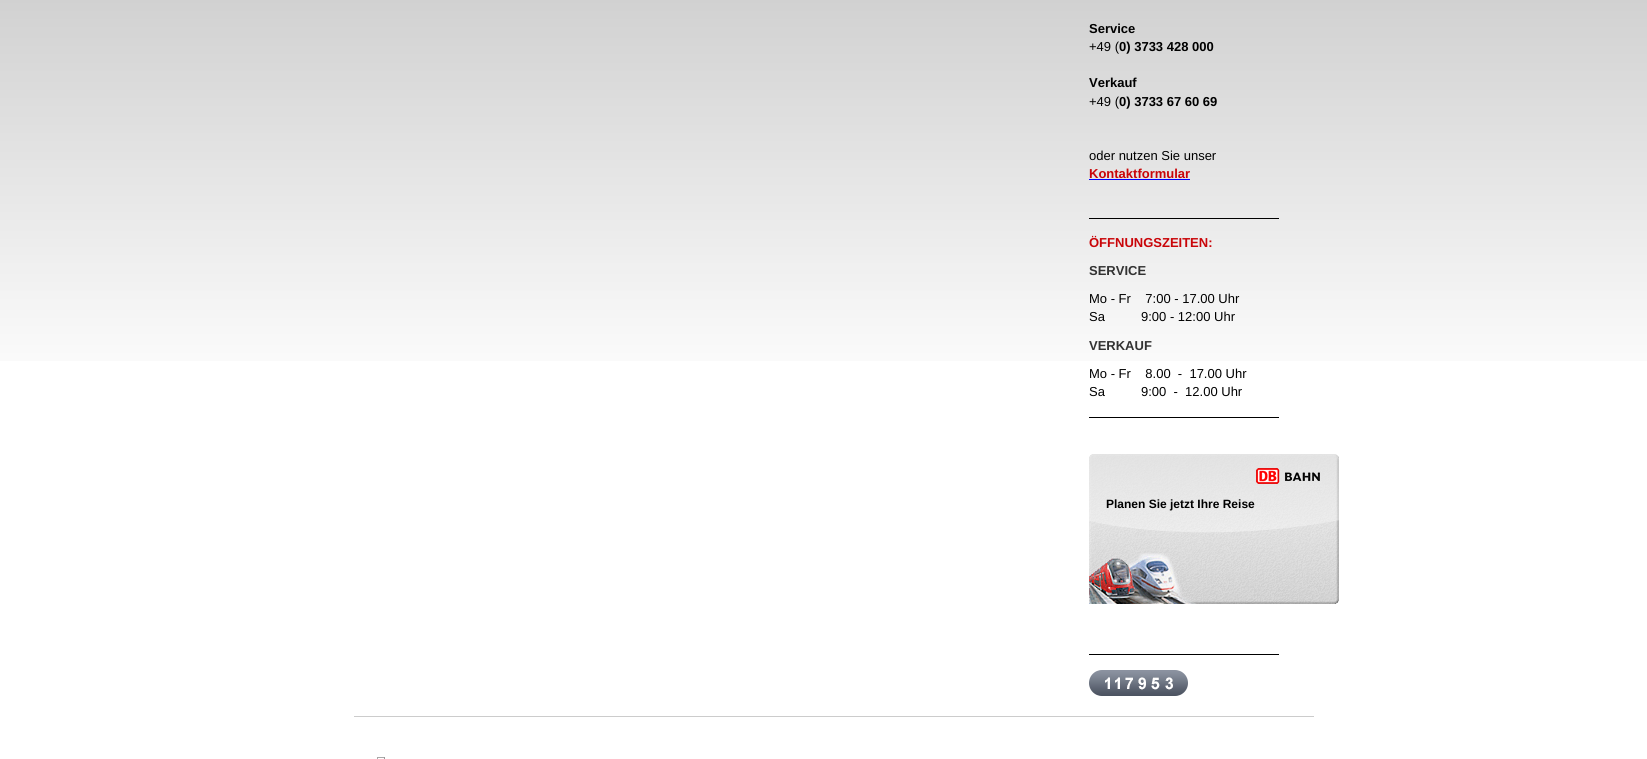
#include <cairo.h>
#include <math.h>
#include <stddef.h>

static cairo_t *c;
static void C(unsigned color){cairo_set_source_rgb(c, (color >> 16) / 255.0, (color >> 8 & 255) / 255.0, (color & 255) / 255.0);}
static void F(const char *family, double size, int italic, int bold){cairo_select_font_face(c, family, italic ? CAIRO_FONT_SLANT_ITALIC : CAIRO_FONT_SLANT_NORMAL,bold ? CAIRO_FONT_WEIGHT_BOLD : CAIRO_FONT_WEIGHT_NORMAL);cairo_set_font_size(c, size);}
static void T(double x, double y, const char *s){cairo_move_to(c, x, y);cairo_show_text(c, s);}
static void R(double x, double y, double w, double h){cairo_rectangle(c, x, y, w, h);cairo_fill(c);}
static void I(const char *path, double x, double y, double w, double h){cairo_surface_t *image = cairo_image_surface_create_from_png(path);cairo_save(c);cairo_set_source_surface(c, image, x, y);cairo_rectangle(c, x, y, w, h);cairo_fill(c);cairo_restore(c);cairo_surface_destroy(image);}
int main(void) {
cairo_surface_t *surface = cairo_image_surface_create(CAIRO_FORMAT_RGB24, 1647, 759);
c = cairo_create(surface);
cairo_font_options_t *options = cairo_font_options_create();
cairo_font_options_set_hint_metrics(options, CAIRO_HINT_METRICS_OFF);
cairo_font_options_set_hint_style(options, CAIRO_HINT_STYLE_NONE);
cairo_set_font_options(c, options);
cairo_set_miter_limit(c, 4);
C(0xffffff);
cairo_paint(c);
I("1.png",0,0,1647,361);
F("Liberation Sans",13,0,1);
C(0x000000);
T(1089,33,"Service");
F("Liberation Sans",13,0,0);
T(1089,51,"+49 (");
F("Liberation Sans",13,0,1);
T(1119,51,"0) 3733 428 000");
T(1089,87,"Verkauf");
F("Liberation Sans",13,0,0);
T(1089,106,"+49 (");
F("Liberation Sans",13,0,1);
T(1119,106,"0) 3733 67 60 69");
F("Liberation Sans",13,0,0);
T(1089,160,"oder nutzen Sie unser");
F("Liberation Sans",13,0,1);
C(0xc90509);
T(1089,178,"Kontaktformular");
C(0x0000ff);
R(1089,179,101,1);
C(0x000000);
R(1089,218,190,1);
C(0xc90509);
T(1089,247,"ÖFFNUNGSZEITEN:");
C(0x333333);
T(1089,275,"SERVICE");
F("Liberation Sans",13,0,0);
C(0x000000);
T(1089,303,"Mo - Fr    7:00 - 17.00 Uhr");
T(1089,321,"Sa          9:00 - 12:00 Uhr");
F("Liberation Sans",13,0,1);
C(0x333333);
T(1089,350,"VERKAUF");
F("Liberation Sans",13,0,0);
C(0x000000);
T(1089,378,"Mo - Fr    8.00  -  17.00 Uhr");
T(1089,396,"Sa          9:00  -  12.00 Uhr");
R(1089,417,190,1);
I("2.png",1089,454,250,150);
F("Liberation Sans",12,0,1);
T(1106,508,"Planen Sie jetzt Ihre Reise");
I("3.png",1089,553,107,51);
R(1089,654,190,1);
I("4.png",1089,670,14,26);
I("5.png",1103,670,10,26);
I("5.png",1113,670,10,26);
I("6.png",1123,670,13,26);
I("7.png",1136,670,13,26);
I("8.png",1149,670,14,26);
I("9.png",1163,670,12,26);
I("10.png",1175,670,13,26);
C(0xcccccc);
R(354,716,960,1);
I("11.png",377,757,8,2);
cairo_surface_write_to_png(surface, "o.png");
cairo_font_options_destroy(options);
cairo_destroy(c);
cairo_surface_destroy(surface);
return 0;
}
